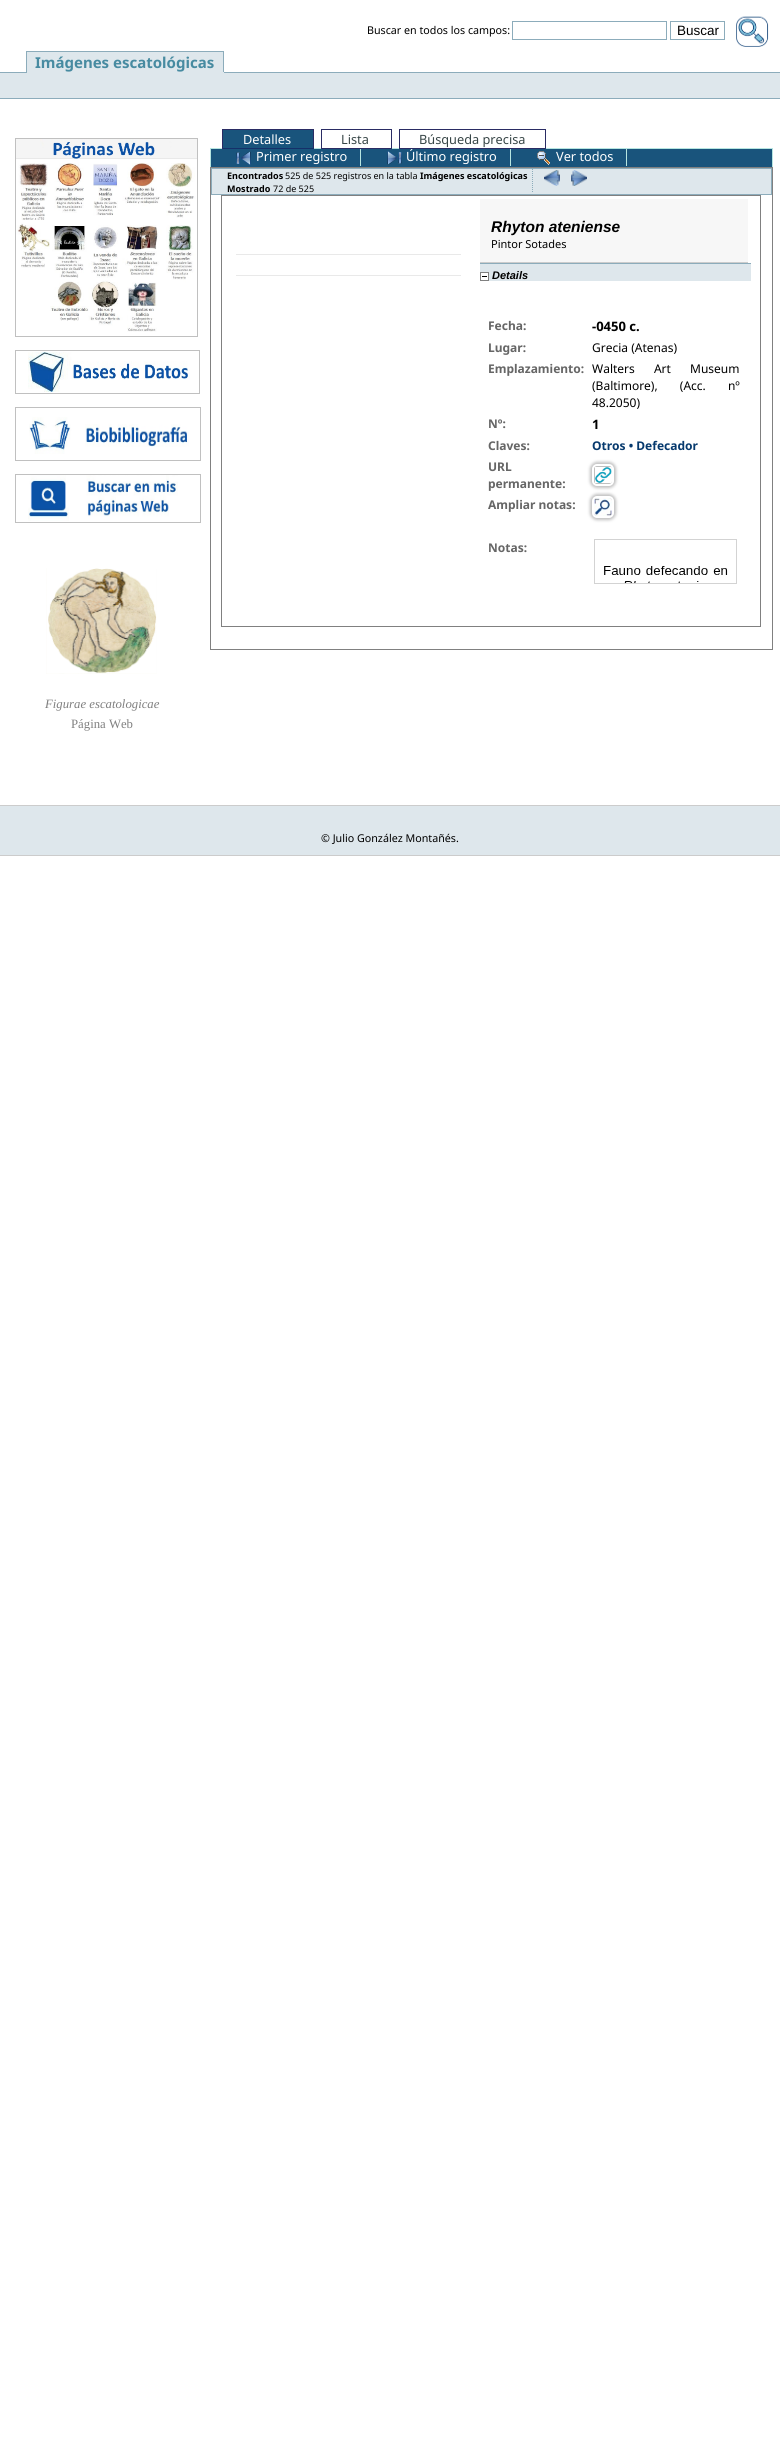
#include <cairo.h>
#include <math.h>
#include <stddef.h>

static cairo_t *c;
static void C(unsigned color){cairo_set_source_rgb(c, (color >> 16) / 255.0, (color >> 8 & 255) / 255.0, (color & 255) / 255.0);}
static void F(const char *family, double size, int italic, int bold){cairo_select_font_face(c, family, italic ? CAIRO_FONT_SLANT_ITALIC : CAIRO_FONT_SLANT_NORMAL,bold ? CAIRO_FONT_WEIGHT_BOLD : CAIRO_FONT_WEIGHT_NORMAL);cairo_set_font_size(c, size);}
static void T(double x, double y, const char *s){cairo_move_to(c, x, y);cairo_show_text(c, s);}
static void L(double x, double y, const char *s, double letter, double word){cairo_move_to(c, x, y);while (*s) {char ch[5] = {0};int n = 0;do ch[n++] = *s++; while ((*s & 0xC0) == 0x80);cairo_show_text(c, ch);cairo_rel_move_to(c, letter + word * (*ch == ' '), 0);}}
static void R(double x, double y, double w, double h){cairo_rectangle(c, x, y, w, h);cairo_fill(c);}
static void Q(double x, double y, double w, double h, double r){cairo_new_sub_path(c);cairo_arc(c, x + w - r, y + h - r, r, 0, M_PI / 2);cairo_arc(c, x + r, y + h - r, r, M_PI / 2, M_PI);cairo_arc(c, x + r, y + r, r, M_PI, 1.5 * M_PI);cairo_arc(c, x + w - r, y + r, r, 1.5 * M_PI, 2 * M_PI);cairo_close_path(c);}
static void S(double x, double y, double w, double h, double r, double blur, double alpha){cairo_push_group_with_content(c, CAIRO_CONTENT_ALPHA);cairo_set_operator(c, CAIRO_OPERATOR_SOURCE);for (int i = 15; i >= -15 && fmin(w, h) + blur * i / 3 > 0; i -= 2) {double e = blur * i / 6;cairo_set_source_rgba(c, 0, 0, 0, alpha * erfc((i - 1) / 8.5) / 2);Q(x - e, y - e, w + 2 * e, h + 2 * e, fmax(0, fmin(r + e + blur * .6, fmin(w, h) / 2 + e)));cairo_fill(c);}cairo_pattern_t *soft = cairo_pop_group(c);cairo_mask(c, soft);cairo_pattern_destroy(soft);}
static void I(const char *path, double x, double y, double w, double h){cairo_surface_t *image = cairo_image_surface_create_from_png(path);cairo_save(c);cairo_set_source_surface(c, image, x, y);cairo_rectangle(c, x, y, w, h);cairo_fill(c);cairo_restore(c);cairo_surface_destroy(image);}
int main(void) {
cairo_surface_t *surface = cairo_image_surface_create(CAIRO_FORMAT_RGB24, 780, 2462);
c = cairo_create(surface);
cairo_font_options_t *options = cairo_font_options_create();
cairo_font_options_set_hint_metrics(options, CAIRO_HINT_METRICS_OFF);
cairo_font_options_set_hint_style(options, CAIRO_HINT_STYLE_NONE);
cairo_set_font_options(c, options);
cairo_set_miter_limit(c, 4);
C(0xffffff);
cairo_paint(c);
F("Noto Sans",10.7,0,0);
C(0x000000);
T(367,34,"Buscar en todos los campos:");
cairo_rectangle(c,512.5,21.5,154,18);
C(0x8cacbb);
cairo_set_line_width(c,1);
cairo_stroke(c);
cairo_rectangle(c,670.5,21.5,54,18);
cairo_stroke(c);
F("Liberation Sans",13.5,0,0);
C(0x000000);
T(677,35,"Buscar");
C(0xdee7ec);
R(27,52,196,20);
F("Noto Sans",15,0,1);
C(0x478ba1);
T(35,68,"Imágenes escatológicas");
C(0x8cacbb);
R(26,51,198,1);
R(0,72,780,1);
R(223,51,1,22);
C(0xdee7ec);
R(26,72,198,1);
C(0x8cacbb);
R(26,51,1,22);
C(0xdee7ec);
R(0,73,780,25);
C(0x8cacbb);
R(0,98,780,1);
I("1.png",736,16,33,31);
C(0xb6e5e1);
R(210,148,563,1);
C(0x19547c);
R(223,130,90,18);
F("Noto Sans",12.75,0,0);
C(0xffffff);
T(243,144,"Detalles");
C(0x2a2c64);
R(222,129,92,1);
C(0x153069);
R(222,148,69,1);
C(0x2a2c64);
R(222,129,1,20);
R(313,129,1,20);
C(0x153069);
R(291,148,23,1);
C(0x384647);
T(341,144,"Lista");
C(0x2a2c64);
R(321,129,71,1);
R(321,148,48,1);
R(321,129,1,20);
R(391,129,1,20);
R(369,148,23,1);
C(0x19547c);
R(211,149,561,18);
C(0xffffff);
T(406,161,"Último registro");
cairo_rectangle(c,399.5,129.5,146,19);
C(0x2a2c64);
cairo_stroke(c);
C(0x384647);
T(419,144,"Búsqueda precisa");
C(0xb6e5e1);
R(772,149,1,18);
R(210,149,1,18);
R(360,149,1,17);
I("2.png",236,151,15,14);
C(0xffffff);
T(256,161,"Primer registro");
C(0xb6e5e1);
R(510,149,1,17);
I("3.png",387,151,15,14);
R(626,149,1,17);
I("4.png",537,151,13,14);
C(0xffffff);
T(556,161,"Ver todos");
cairo_rectangle(c,210.5,167.5,562,482);
C(0x808080);
cairo_stroke(c);
C(0xdee7ec);
cairo_rectangle(c,211.5,168.5,560,26);
cairo_fill_preserve(c);
C(0x8cacbb);
cairo_stroke(c);
cairo_new_path(c);
cairo_move_to(c,532.5,169);
cairo_line_to(c,532.5,192);
cairo_set_dash(c,(double[]){1,1},2,0);
cairo_stroke(c);
F("Noto Sans",9,0,1);
C(0x000000);
T(227,179,"Encontrados");
F("Noto Sans",9,0,0);
T(285,179,"525 de 525 registros en la tabla");
F("Noto Sans",9,0,1);
T(420,179,"Imágenes escatológicas");
T(227,192,"Mostrado");
F("Noto Sans",9,0,0);
T(273,192,"72 de 525");
I("5.png",544,170,16,16);
I("6.png",571,170,16,16);
cairo_rectangle(c,221.5,195.5,539,431);
C(0x808080);
cairo_set_dash(c,NULL,0,0);
cairo_stroke(c);
C(0xe9e9e9);
R(236,254,225,1);
R(236,275,225,1);
C(0xf7f7f7);
R(480,199,268,63);
C(0xcccccc);
R(480,262,268,1);
F("Liberation Sans",15.5,1,1);
C(0x000000);
T(491,232,"Rhyton ateniense");
F("Noto Sans",11,0,0);
T(491,248,"Pintor Sotades");
C(0xdee7ec);
R(480,264,271,17);
C(0x8cacbb);
R(480,263,271,1);
I("7.png",480,272,9,9);
F("Liberation Sans",11,1,1);
C(0x000000);
T(492,279,"Details");
F("Noto Sans",12,0,1);
C(0x666666);
T(488,330,"Fecha:");
F("Noto Sans",13,0,1);
C(0x000000);
T(592,331,"-0450 c.");
F("Noto Sans",12,0,1);
C(0x666666);
T(488,352,"Lugar:");
F("Noto Sans",12,0,0);
C(0x000000);
T(592,352,"Grecia (Atenas)");
F("Noto Sans",12,0,1);
C(0x666666);
T(488,373,"Emplazamiento:");
F("Noto Sans",12,0,0);
C(0x000000);
L(592,373,"Walters Art Museum",0,16);
L(592,390,"(Baltimore), (Acc. nº",0,19);
T(592,407,"48.2050)");
F("Noto Sans",12,0,1);
C(0x666666);
T(488,428,"Nº:");
F("Noto Sans",13,0,1);
C(0x000000);
T(592,429,"1");
F("Noto Sans",12,0,1);
C(0x666666);
T(488,450,"Claves:");
C(0x073a6e);
T(592,450,"Otros • Defecador");
C(0x666666);
T(488,471,"URL");
T(488,488,"permanente:");
C(0xc0c0c0);
S(590,462,26,26,7,1.5,1);
Q(593,465,20,20,4);
C(0xffffff);
cairo_set_line_width(c,2);
cairo_stroke(c);
I("8.png",595,467,17,16);
C(0x666666);
T(488,509,"Ampliar notas:");
C(0xc0c0c0);
S(590,494,26,26,7,1.5,1);
Q(593,497,20,20,4);
C(0xffffff);
cairo_stroke(c);
I("9.png",594,498,18,18);
C(0x666666);
T(488,552,"Notas:");
cairo_rectangle(c,594.5,539.5,142,44);
C(0xd3d3d3);
cairo_set_line_width(c,1);
cairo_stroke(c);
I("10.png",604,566,124,17);
cairo_rectangle(c,15.5,138.5,182,198);
C(0xc0c0c0);
cairo_stroke(c);
I("11.png",16,139,181,193);
cairo_rectangle(c,15.5,350.5,184,43);
cairo_stroke(c);
I("12.png",28,352,162,40);
cairo_rectangle(c,15.5,407.5,185,53);
cairo_stroke(c);
I("13.png",29,417,160,37);
cairo_rectangle(c,15.5,474.5,185,48);
cairo_stroke(c);
I("14.png",28,475,150,46);
I("15.png",46,568,111,106);
F("Liberation Serif",12.75,1,0);
C(0x808080);
T(45,708,"Figurae escatologicae");
F("Liberation Serif",12.75,0,0);
T(71,728,"Página Web");
C(0xdee7ec);
R(0,806,780,49);
C(0xcccccc);
R(0,805,780,1);
R(0,855,780,1);
F("Noto Sans",10.7,0,0);
C(0x000000);
T(321,842,"© Julio González Montañés.");
cairo_surface_write_to_png(surface, "o.png");
cairo_font_options_destroy(options);
cairo_destroy(c);
cairo_surface_destroy(surface);
return 0;
}
